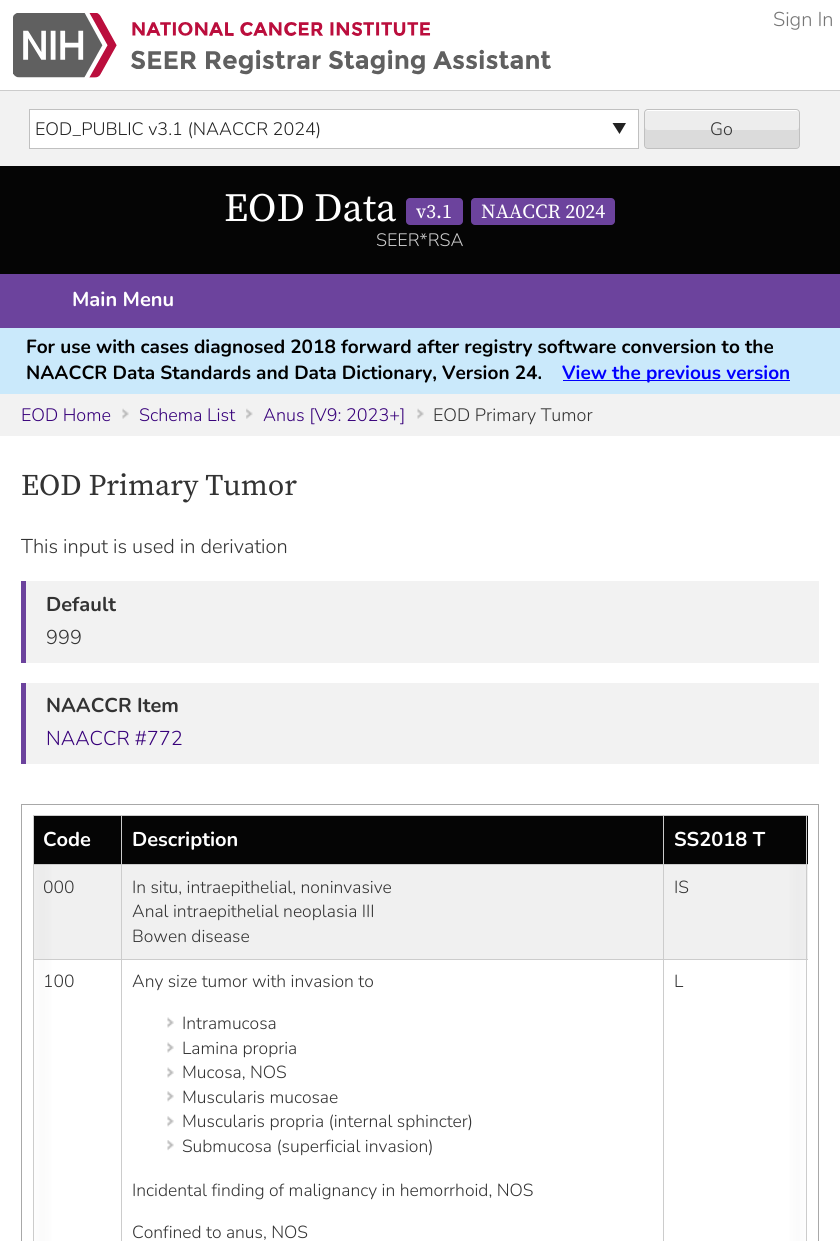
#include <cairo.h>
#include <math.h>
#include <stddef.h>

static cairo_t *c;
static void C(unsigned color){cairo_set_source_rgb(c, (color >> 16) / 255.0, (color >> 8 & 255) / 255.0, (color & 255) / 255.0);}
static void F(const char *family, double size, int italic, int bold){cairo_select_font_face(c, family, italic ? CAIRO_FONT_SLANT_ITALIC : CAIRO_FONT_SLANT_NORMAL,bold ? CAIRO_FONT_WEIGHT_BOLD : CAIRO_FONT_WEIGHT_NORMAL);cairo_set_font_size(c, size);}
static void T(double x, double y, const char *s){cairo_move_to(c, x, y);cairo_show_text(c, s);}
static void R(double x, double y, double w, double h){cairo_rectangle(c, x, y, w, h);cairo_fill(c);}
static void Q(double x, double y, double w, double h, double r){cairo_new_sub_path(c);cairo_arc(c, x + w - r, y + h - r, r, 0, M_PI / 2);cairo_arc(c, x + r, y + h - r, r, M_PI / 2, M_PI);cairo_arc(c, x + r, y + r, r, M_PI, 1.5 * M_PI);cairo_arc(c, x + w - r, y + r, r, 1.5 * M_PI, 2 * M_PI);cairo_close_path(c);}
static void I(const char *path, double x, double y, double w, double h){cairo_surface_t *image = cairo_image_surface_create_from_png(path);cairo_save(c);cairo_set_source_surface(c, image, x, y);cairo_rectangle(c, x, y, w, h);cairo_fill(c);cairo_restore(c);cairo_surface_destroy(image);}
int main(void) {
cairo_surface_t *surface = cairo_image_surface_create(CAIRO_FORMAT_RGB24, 840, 1241);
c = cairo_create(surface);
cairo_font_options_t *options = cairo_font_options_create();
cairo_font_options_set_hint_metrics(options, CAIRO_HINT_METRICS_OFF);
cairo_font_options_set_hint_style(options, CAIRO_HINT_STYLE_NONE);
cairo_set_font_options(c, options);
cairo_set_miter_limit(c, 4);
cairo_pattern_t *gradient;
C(0x050505);
cairo_paint(c);
C(0xffffff);
R(0,0,840,90);
F("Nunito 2 ExtraLight",20,0,0);
C(0x767676);
T(773,26,"Sign In");
I("1.png",13,13,538,65);
C(0xf2f2f2);
R(0,91,840,75);
C(0xcccccc);
R(0,90,840,1);
C(0xffffff);
R(30,110,608,38);
C(0x222222);
cairo_new_path(c);
cairo_move_to(c,626,123);
cairo_line_to(c,619.5,134);
cairo_line_to(c,612.5,123);
cairo_close_path(c);
cairo_fill(c);
cairo_rectangle(c,29.5,109.5,609,39);
C(0xc0c0c0);
cairo_set_line_width(c,1);
cairo_stroke(c);
F("Nunito 2 ExtraLight",18,0,0);
C(0x222222);
T(35,135,"EOD_PUBLIC v3.1 (NAACCR 2024)");
C(0xededed);
Q(644,109,156,40,4);
cairo_fill(c);
C(0xffffff);
cairo_new_path(c);
cairo_move_to(c,648,111);
cairo_line_to(c,796,111);
cairo_curve_to(c,798,111,799,112,799,114);
cairo_curve_to(c,799,112,799,110,797,110);
cairo_line_to(c,647,110);
cairo_curve_to(c,645,110,645,112,645,114);
cairo_curve_to(c,645,112,646,111,648,111);
cairo_close_path(c);
cairo_fill(c);
C(0xdbdbdb);
cairo_new_path(c);
cairo_move_to(c,645,127);
cairo_curve_to(c,645,154,640,148,672,148);
cairo_line_to(c,772,148);
cairo_curve_to(c,804,148,799,154,799,127);
cairo_curve_to(c,799,128,798,130,796,130);
cairo_line_to(c,648,130);
cairo_curve_to(c,646,130,645,128,645,127);
cairo_close_path(c);
cairo_fill(c);
Q(644.5,109.5,155,39,3.5);
C(0xc0c0c0);
cairo_stroke(c);
C(0x333333);
T(710,135,"Go");
F("Source Serif Pro",40,0,0);
C(0xffffff);
T(224,221,"EOD Data");
C(0x6c439d);
Q(406,198,57,27,4);
cairo_fill(c);
F("Source Serif Pro",20,0,0);
C(0xffffff);
T(416,218,"v3.1");
C(0x6c439d);
Q(471,198,144,27,4);
cairo_fill(c);
C(0xffffff);
T(481,218,"NAACCR 2024");
F("Nunito 2 ExtraLight",18,0,0);
C(0xcccccc);
T(376,246,"SEER*RSA");
C(0x6c439d);
R(0,274,840,54);
F("Nunito ExtraLight",20,0,0);
C(0xffffff);
T(72,306,"Main Menu");
C(0xcae9fb);
R(0,328,840,66);
F("Nunito ExtraLight",19,0,0);
C(0x000000);
T(26,353,"For use with cases diagnosed 2018 forward after registry software conversion to the");
T(26,379,"NAACCR Data Standards and Data Dictionary, Version 24.");
C(0x0000ff);
R(563,380,227,1);
T(562,379,"View the previous version");
C(0xf2f2f2);
R(0,394,840,42);
I("2.png",122,408,7,11);
F("Nunito 2 ExtraLight",18,0,0);
C(0x37007a);
T(21,421,"EOD Home");
I("3.png",246,408,7,11);
T(139,421,"Schema List");
I("2.png",417,408,7,11);
T(263,421,"Anus [V9: 2023+]");
C(0x333333);
T(433,421,"EOD Primary Tumor");
C(0xffffff);
R(0,436,840,805);
F("Source Serif Pro",30,0,0);
C(0x333333);
T(21,495,"EOD Primary Tumor");
F("Nunito 2 ExtraLight",20,0,0);
T(21,553,"This input is used in derivation");
C(0xf2f2f2);
R(26,581,793,82);
C(0x6c439d);
R(21,581,5,82);
F("Nunito ExtraLight",20,0,0);
C(0x333333);
T(46,611,"Default");
F("Nunito 2 ExtraLight",20,0,0);
T(46,644,"999");
C(0xf2f2f2);
R(26,683,793,81);
C(0x6c439d);
R(21,683,5,81);
F("Nunito ExtraLight",20,0,0);
C(0x333333);
T(46,712,"NAACCR Item");
F("Nunito 2 ExtraLight",20,0,0);
C(0x37007a);
T(46,745,"NAACCR #772");
cairo_rectangle(c,21.5,804.5,797,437);
C(0xa8a8a8);
cairo_stroke(c);
gradient = cairo_pattern_create_linear(808,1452,788,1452);
cairo_pattern_add_color_stop_rgba(gradient,0,0.765,0.765,0.773,1);
cairo_pattern_add_color_stop_rgba(gradient,1,1,1,1,1);
cairo_set_source(c,gradient);
cairo_pattern_destroy(gradient);
R(789,865,19,376);
gradient = cairo_pattern_create_linear(32,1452,53,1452);
cairo_pattern_add_color_stop_rgba(gradient,0,0.765,0.765,0.773,1);
cairo_pattern_add_color_stop_rgba(gradient,1,1,1,1,1);
cairo_set_source(c,gradient);
cairo_pattern_destroy(gradient);
R(34,865,18,376);
gradient = cairo_pattern_create_linear(808,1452,728,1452);
cairo_pattern_add_color_stop_rgba(gradient,0,1,1,1,1);
cairo_pattern_add_color_stop_rgba(gradient,1,1,1,1,0);
cairo_set_source(c,gradient);
cairo_pattern_destroy(gradient);
R(789,865,19,376);
gradient = cairo_pattern_create_linear(32,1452,113,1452);
cairo_pattern_add_color_stop_rgba(gradient,0,1,1,1,1);
cairo_pattern_add_color_stop_rgba(gradient,1,1,1,1,0);
cairo_set_source(c,gradient);
cairo_pattern_destroy(gradient);
R(34,865,18,376);
C(0x050505);
R(34,816,87,48);
C(0xcccccc);
R(663,815,145,1);
R(663,864,145,1);
R(663,959,145,1);
R(663,959,1,282);
R(121,959,543,1);
R(663,864,1,96);
R(121,864,543,1);
R(663,815,1,50);
R(121,815,543,1);
R(121,959,1,282);
R(33,959,90,1);
R(121,864,1,96);
R(33,864,90,1);
R(121,815,1,50);
R(33,815,90,1);
R(33,959,1,282);
R(33,864,1,96);
R(33,815,1,50);
F("Nunito ExtraLight",20,0,0);
C(0xffffff);
T(43,846,"Code");
C(0x050505);
R(122,816,541,48);
C(0xffffff);
T(132,846,"Description");
C(0x050505);
R(664,816,144,48);
cairo_set_source_rgba(c,0,0,0,0.06);
R(664,865,144,94);
C(0xcccccc);
R(806,959,1,282);
R(806,864,1,96);
R(806,815,1,50);
C(0xffffff);
T(674,846,"SS2018 T");
cairo_set_source_rgba(c,0,0,0,0.06);
R(34,865,87,94);
F("Nunito 2 ExtraLight",17.5,0,0);
C(0x333333);
T(43,893,"000");
C(0xf0f0f0);
R(122,865,541,94);
C(0x333333);
T(132,893,"In situ, intraepithelial, noninvasive");
T(132,917,"Anal intraepithelial neoplasia III");
T(132,942,"Bowen disease");
T(674,893,"IS");
T(43,987,"100");
T(132,987,"Any size tumor with invasion to");
I("4.png",167,1017,7,11);
T(182,1029,"Intramucosa");
I("4.png",167,1042,7,11);
T(182,1054,"Lamina propria");
I("4.png",167,1067,7,11);
T(182,1078,"Mucosa, NOS");
I("5.png",167,1091,7,11);
T(182,1103,"Muscularis mucosae");
I("5.png",167,1116,7,11);
T(182,1127,"Muscularis propria (internal sphincter)");
I("6.png",167,1140,7,11);
T(182,1152,"Submucosa (superficial invasion)");
T(132,1196,"Incidental finding of malignancy in hemorrhoid, NOS");
T(132,1238,"Confined to anus, NOS");
T(674,987,"L");
cairo_surface_write_to_png(surface, "o.png");
cairo_font_options_destroy(options);
cairo_destroy(c);
cairo_surface_destroy(surface);
return 0;
}
